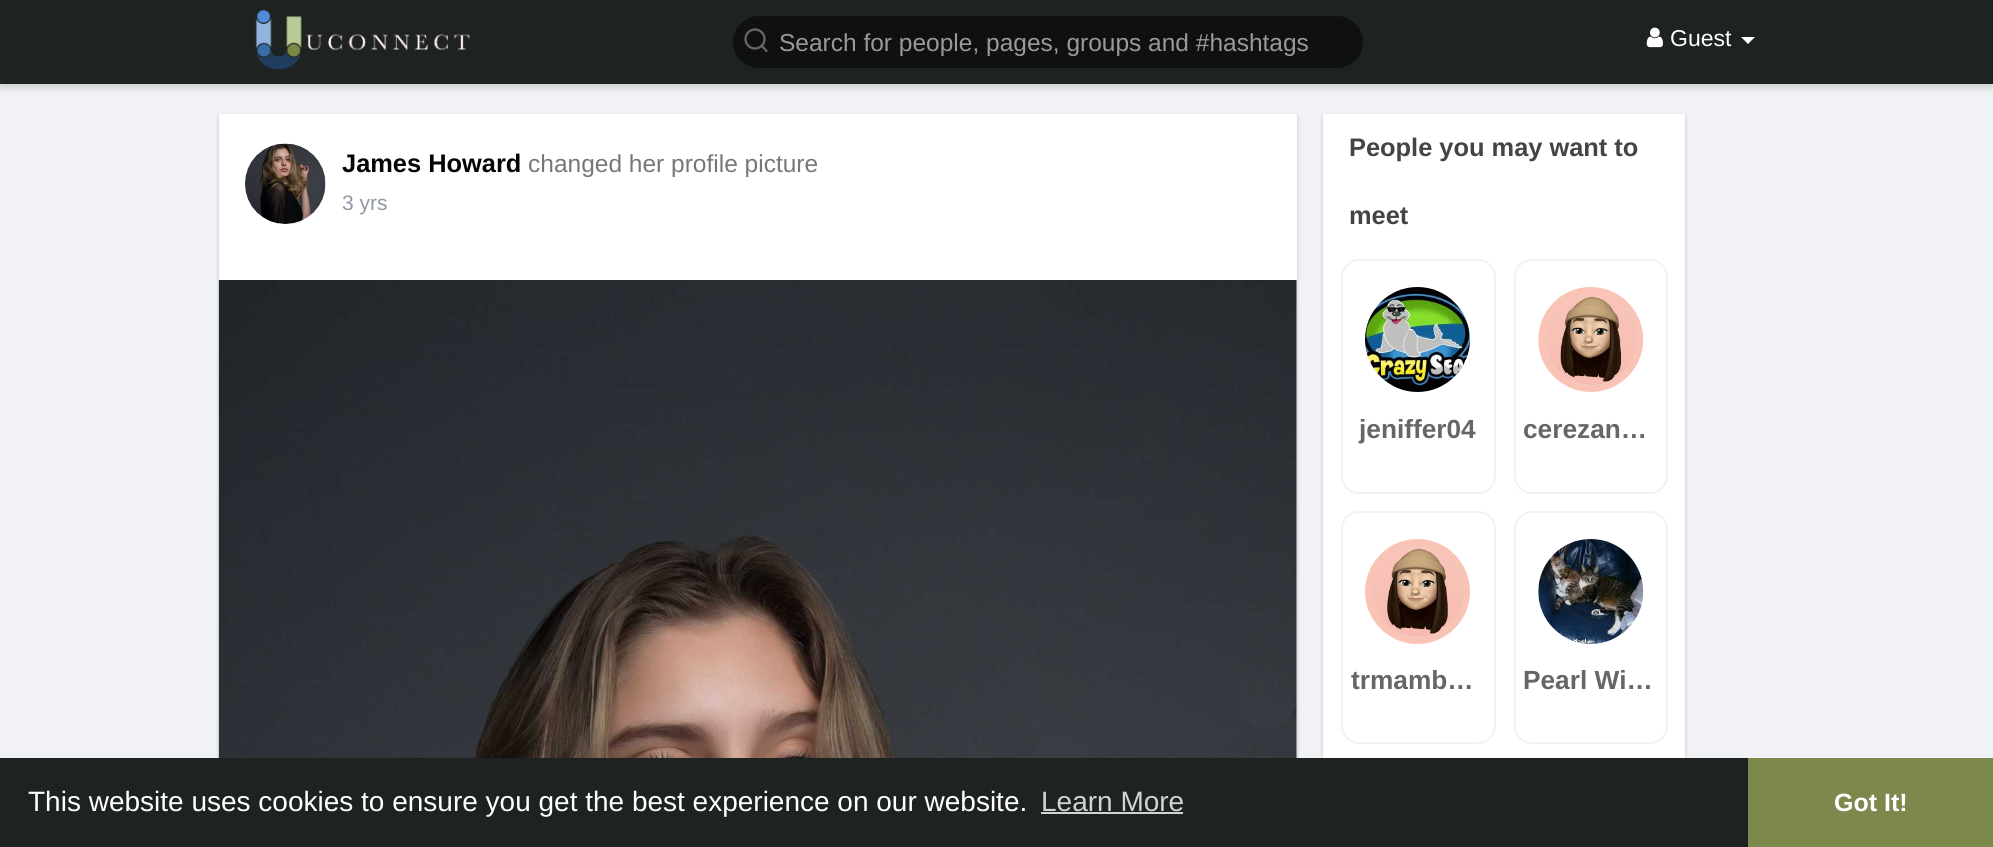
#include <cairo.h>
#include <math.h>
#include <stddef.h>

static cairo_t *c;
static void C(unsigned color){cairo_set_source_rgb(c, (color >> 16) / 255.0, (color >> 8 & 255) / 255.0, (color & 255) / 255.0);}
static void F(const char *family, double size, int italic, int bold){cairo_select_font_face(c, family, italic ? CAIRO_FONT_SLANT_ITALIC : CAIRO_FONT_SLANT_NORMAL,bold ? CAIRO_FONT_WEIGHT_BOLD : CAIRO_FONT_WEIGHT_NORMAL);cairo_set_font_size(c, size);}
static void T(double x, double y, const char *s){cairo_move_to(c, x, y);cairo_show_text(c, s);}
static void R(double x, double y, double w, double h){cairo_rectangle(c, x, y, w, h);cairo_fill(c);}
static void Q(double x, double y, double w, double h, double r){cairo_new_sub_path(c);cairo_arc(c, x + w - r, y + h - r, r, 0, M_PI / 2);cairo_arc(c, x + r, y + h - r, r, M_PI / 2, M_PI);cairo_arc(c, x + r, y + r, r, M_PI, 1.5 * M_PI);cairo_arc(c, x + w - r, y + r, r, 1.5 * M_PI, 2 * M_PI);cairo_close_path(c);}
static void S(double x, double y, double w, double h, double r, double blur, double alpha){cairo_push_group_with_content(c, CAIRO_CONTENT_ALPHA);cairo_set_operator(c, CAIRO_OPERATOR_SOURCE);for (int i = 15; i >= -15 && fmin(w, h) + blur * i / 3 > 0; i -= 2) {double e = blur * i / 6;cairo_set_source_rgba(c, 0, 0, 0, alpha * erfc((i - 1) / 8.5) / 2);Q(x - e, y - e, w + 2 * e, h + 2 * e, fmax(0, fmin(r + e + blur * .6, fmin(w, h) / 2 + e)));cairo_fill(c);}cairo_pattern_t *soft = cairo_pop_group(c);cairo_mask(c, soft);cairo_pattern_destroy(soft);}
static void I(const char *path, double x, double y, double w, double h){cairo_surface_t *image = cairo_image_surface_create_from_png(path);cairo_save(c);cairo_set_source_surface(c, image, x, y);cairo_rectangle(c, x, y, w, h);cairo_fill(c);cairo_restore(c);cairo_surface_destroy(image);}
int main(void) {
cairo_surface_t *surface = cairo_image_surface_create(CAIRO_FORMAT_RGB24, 1993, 847);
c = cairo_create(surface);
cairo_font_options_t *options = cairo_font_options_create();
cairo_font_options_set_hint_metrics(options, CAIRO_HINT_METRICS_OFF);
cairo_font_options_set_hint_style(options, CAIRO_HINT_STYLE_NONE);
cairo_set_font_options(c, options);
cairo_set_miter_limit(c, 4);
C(0xf0f2f5);
cairo_paint(c);
C(0x000000);
S(0,4,1993,84,0,3.5,.15);
C(0x1e2321);
R(0,0,1993,84);
I("1.png",255,9,215,61);
C(0x0f1110);
Q(733,16,630,52,26);
cairo_fill(c);
cairo_arc(c,755,39,9.5,0,2 * M_PI);
C(0x666666);
cairo_set_line_width(c,2.3);
cairo_stroke(c);
cairo_new_path(c);
cairo_move_to(c,766.5,51);
cairo_line_to(c,761.5,45.5);
cairo_set_line_cap(c,CAIRO_LINE_CAP_ROUND);
cairo_set_line_join(c,CAIRO_LINE_JOIN_ROUND);
cairo_stroke(c);
cairo_save(c);
cairo_rectangle(c,779,28,562,28);
cairo_clip(c);
F("Liberation Sans",24.5,0,0);
C(0x999999);
T(779,51,"Search for people, pages, groups and #hashtags");
cairo_restore(c);
I("2.png",1646,27,17,21);
F("Liberation Sans",23,0,0);
C(0xffffff);
T(1670,46,"Guest");
cairo_new_path(c);
cairo_move_to(c,1741,37);
cairo_line_to(c,1755,37);
cairo_line_to(c,1748,44);
cairo_close_path(c);
cairo_fill(c);
C(0x000000);
S(219,116,1078,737,0,2,.2);
C(0xffffff);
R(219,114,1078,644);
I("3.png",245,143,81,81);
F("Liberation Sans",25.4,0,1);
C(0x050505);
T(342,172,"James Howard");
F("Liberation Sans",24.5,0,0);
C(0x777777);
T(528,172,"changed her profile picture");
F("Liberation Sans",21,0,0);
C(0x9197a3);
T(342,210,"3 yrs");
I("4.png",218,280,1079,478);
C(0x000000);
S(1323,116,362,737,0,2,.2);
C(0xffffff);
R(1323,114,362,644);
F("Liberation Sans",25.4,0,1);
C(0x444444);
T(1349,156,"People you may want to");
T(1349,224,"meet");
Q(1342,260,153,233,17);
C(0xf0f2f5);
cairo_set_line_width(c,2);
cairo_set_line_cap(c,CAIRO_LINE_CAP_BUTT);
cairo_set_line_join(c,CAIRO_LINE_JOIN_MITER);
cairo_stroke(c);
I("5.png",1365,287,105,105);
F("Liberation Sans",26.25,0,1);
C(0x666666);
T(1359,438,"jeniffer04");
Q(1515,260,152,233,17);
C(0xf0f2f5);
cairo_stroke(c);
I("6.png",1538,287,106,105);
C(0x666666);
T(1523,438,"cerezan…");
Q(1342,512,153,231,17);
C(0xf0f2f5);
cairo_stroke(c);
I("7.png",1365,539,105,105);
C(0x666666);
T(1351,689,"trmamb…");
Q(1515,512,152,231,17);
C(0xf0f2f5);
cairo_stroke(c);
I("8.png",1538,539,106,105);
C(0x666666);
T(1523,689,"Pearl Wi…");
C(0x1e2321);
R(0,758,1748,89);
F("Liberation Sans",28,0,0);
C(0xffffff);
T(28,811,"This website uses cookies to ensure you get the best experience on our website.");
C(0xd2d3d3);
T(1041,811,"Learn More");
R(1041,812,142,2);
C(0x7c884c);
R(1748,758,245,89);
F("Liberation Sans",25,0,1);
C(0xffffff);
T(1834,811,"Got It!");
cairo_surface_write_to_png(surface, "o.png");
cairo_font_options_destroy(options);
cairo_destroy(c);
cairo_surface_destroy(surface);
return 0;
}
